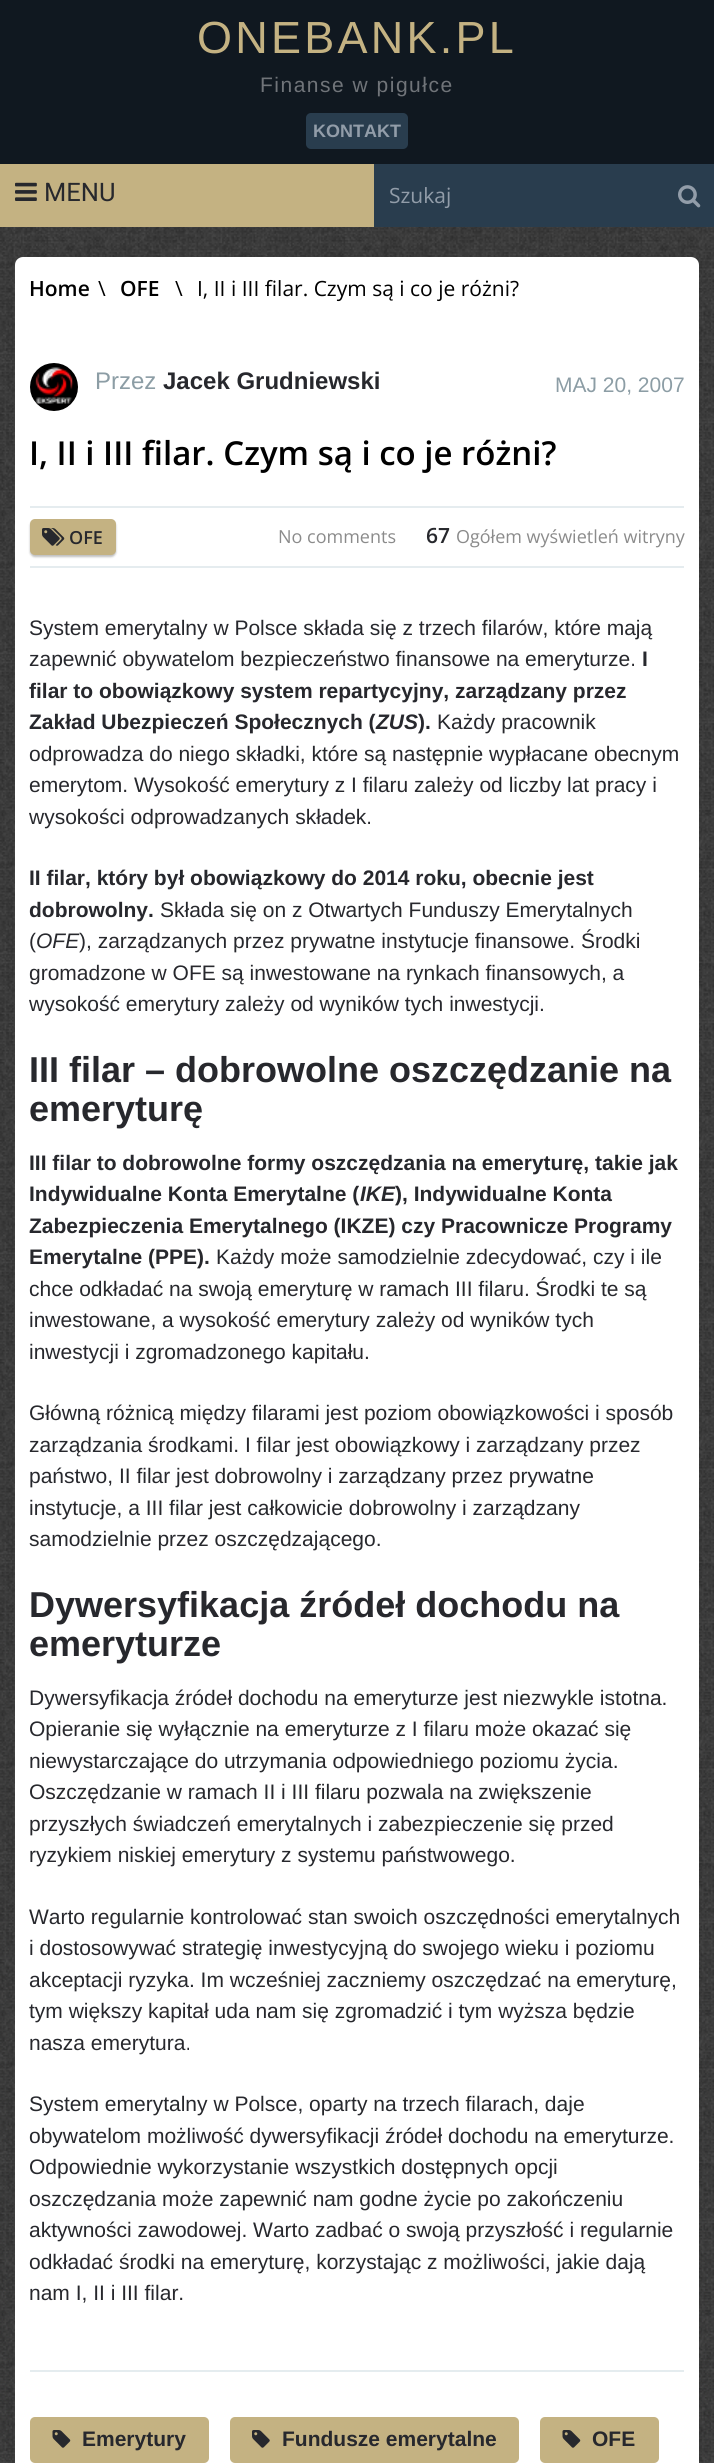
#include <cairo/cairo.h>
#include <math.h>
#include <stddef.h>

static cairo_t *cr;

static void use_color(int r, int g, int b) {
  cairo_set_source_rgb(cr, r / 255.0, g / 255.0, b / 255.0);
}

static void text(double x, double y, const char *s, const char *family, double size, int italic, int bold, int r, int g, int b) {
  cairo_select_font_face(cr, family, italic ? CAIRO_FONT_SLANT_ITALIC : CAIRO_FONT_SLANT_NORMAL,
    bold ? CAIRO_FONT_WEIGHT_BOLD : CAIRO_FONT_WEIGHT_NORMAL);
  cairo_set_font_size(cr, size);
  use_color(r, g, b);
  cairo_move_to(cr, x, y);
  cairo_show_text(cr, s);
}

static void spaced_text(double x, double y, const char *s, double letter, double word) {
  cairo_move_to(cr, x, y);
  while (*s) {
    char ch[5] = {0};
    int n = 0;
    do ch[n++] = *s++; while ((*s & 0xC0) == 0x80);
    cairo_show_text(cr, ch);
    cairo_rel_move_to(cr, letter + word * (*ch == ' '), 0);
  }
}

static void box(double x, double y, double w, double h, int r, int g, int b) {
  use_color(r, g, b);
  cairo_rectangle(cr, x, y, w, h);
  cairo_fill(cr);
}

static void round_rect(double x, double y, double w, double h, double r) {
  cairo_new_sub_path(cr);
  cairo_arc(cr, x + w - r, y + h - r, r, 0, M_PI / 2);
  cairo_arc(cr, x + r, y + h - r, r, M_PI / 2, M_PI);
  cairo_arc(cr, x + r, y + r, r, M_PI, 1.5 * M_PI);
  cairo_arc(cr, x + w - r, y + r, r, 1.5 * M_PI, 2 * M_PI);
  cairo_close_path(cr);
}

static void shadow(double x, double y, double w, double h, double r, double blur, double alpha) {
  cairo_push_group_with_content(cr, CAIRO_CONTENT_ALPHA);
  cairo_set_operator(cr, CAIRO_OPERATOR_SOURCE);
  for (int i = 15; i >= -15 && fmin(w, h) + blur * i / 3 > 0; i -= 2) {
    double e = blur * i / 6;
    cairo_set_source_rgba(cr, 0, 0, 0, alpha * erfc((i - 1) / 8.5) / 2);
    round_rect(x - e, y - e, w + 2 * e, h + 2 * e, fmax(0, fmin(r + e + blur * .6, fmin(w, h) / 2 + e)));
    cairo_fill(cr);
  }
  cairo_pattern_t *soft = cairo_pop_group(cr);
  cairo_mask(cr, soft);
  cairo_pattern_destroy(soft);
}

static void picture(const char *path, double x, double y, double w, double h) {
  cairo_surface_t *image = cairo_image_surface_create_from_png(path);
  cairo_save(cr);
  cairo_set_source_surface(cr, image, x, y);
  cairo_rectangle(cr, x, y, w, h);
  cairo_fill(cr);
  cairo_restore(cr);
  cairo_surface_destroy(image);
}

static void draw(void) {
  use_color(255, 255, 255);
  cairo_paint(cr);
  picture("img_01.png", 0, 227, 714, 2236);
  box(0, 0, 714, 164, 16, 24, 32);
  use_color(41, 61, 78);
  round_rect(306, 113, 102, 36, 5);
  cairo_fill(cr);
  box(0, 164, 374, 63, 196, 178, 130);
  picture("img_02.png", 15, 182, 22, 19);
  box(374, 164, 340, 63, 41, 61, 78);
  picture("img_03.png", 678, 185, 23, 23);
  use_color(255, 255, 255);
  round_rect(15, 257, 684, 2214, 8);
  cairo_fill(cr);
  box(30, 2370, 654, 2, 229, 236, 239);
  picture("img_04.png", 30, 363, 48, 48);
  box(30, 506, 654, 2, 229, 236, 239);
  box(30, 566, 654, 2, 229, 236, 239);
  use_color(0, 0, 0);
  shadow(30, 521, 86, 36, 5, 1, 0.25);
  use_color(196, 178, 130);
  round_rect(30, 519, 86, 36, 5);
  cairo_fill(cr);
  picture("img_05.png", 42, 528, 23, 18);
  round_rect(30, 2417, 179, 46, 5);
  cairo_fill(cr);
  picture("img_06.png", 52, 2430, 19, 18);
  round_rect(230, 2417, 289, 46, 5);
  cairo_fill(cr);
  picture("img_07.png", 252, 2430, 18, 18);
  round_rect(540, 2417, 119, 46, 5);
  cairo_fill(cr);
  picture("img_06.png", 562, 2430, 19, 18);
  cairo_select_font_face(cr, "Liberation Sans", CAIRO_FONT_SLANT_NORMAL, CAIRO_FONT_WEIGHT_NORMAL);
  cairo_set_font_size(cr, 45);
  spaced_text(197, 53, "ONEBANK.PL", 3.25, 0);
  cairo_set_font_size(cr, 21);
  use_color(112, 116, 121);
  spaced_text(260, 92, "Finanse w pigułce", 1.5, 0);
  text(313, 137, "KONTAKT", "Liberation Sans", 18, 0, 1, 146, 157, 169);
  text(44, 201, "MENU", "Roboto", 25.5, 0, 0, 39, 40, 45);
  text(389, 203, "Szukaj", "Open Sans", 21, 0, 0, 146, 157, 169);
  text(29, 296, "Home", "Open Sans SemiBold", 21, 0, 0, 0, 0, 0);
  text(98, 296, "\\", "Open Sans", 21, 0, 0, 0, 0, 0);
  text(120, 296, "OFE", "Open Sans SemiBold", 21, 0, 0, 0, 0, 0);
  text(175, 296, "\\", "Open Sans", 21, 0, 0, 0, 0, 0);
  text(197, 296, "I, II i III filar. Czym są i co je różni?", "Open Sans", 21, 0, 0, 0, 0, 0);
  text(95, 389, "Przez", "Liberation Sans", 24, 0, 0, 140, 157, 165);
  text(163, 389, "Jacek Grudniewski", "Liberation Sans", 24, 0, 1, 39, 40, 45);
  text(555, 392, "MAJ 20, 2007", "Liberation Sans", 21, 0, 0, 140, 157, 165);
  text(29, 465, "I, II i III filar. Czym są i co je różni?", "Open Sans SemiBold", 33, 0, 0, 0, 0, 0);
  text(69, 544, "OFE", "Open Sans SemiBold", 18, 0, 0, 39, 40, 45);
  text(278, 543, "No comments", "Open Sans", 18, 0, 0, 139, 139, 139);
  text(426, 543, "67", "Open Sans SemiBold", 21, 0, 0, 39, 40, 45);
  text(456, 543, "Ogółem wyświetleń witryny", "Open Sans", 18, 0, 0, 139, 139, 139);
  text(29, 635, "System emerytalny w Polsce składa się z trzech filarów, które mają", "Liberation Sans", 21, 0, 0, 39, 40, 45);
  text(29, 666, "zapewnić obywatelom bezpieczeństwo finansowe na emeryturze.", "Liberation Sans", 21, 0, 0, 39, 40, 45);
  text(642, 666, "I", "Liberation Sans", 21, 0, 1, 39, 40, 45);
  text(29, 698, "filar to obowiązkowy system repartycyjny, zarządzany przez", "Liberation Sans", 21, 0, 1, 39, 40, 45);
  text(29, 729, "Zakład Ubezpieczeń Społecznych (", "Liberation Sans", 21, 0, 1, 39, 40, 45);
  text(376, 729, "ZUS", "Liberation Sans", 21, 1, 1, 39, 40, 45);
  text(418, 729, ").", "Liberation Sans", 21, 0, 1, 39, 40, 45);
  text(437, 729, "Każdy pracownik", "Liberation Sans", 21, 0, 0, 39, 40, 45);
  text(29, 761, "odprowadza do niego składki, które są następnie wypłacane obecnym", "Liberation Sans", 21, 0, 0, 39, 40, 45);
  text(29, 792, "emerytom. Wysokość emerytury z I filaru zależy od liczby lat pracy i", "Liberation Sans", 21, 0, 0, 39, 40, 45);
  text(29, 824, "wysokości odprowadzanych składek.", "Liberation Sans", 21, 0, 0, 39, 40, 45);
  text(29, 885, "II filar, który był obowiązkowy do 2014 roku, obecnie jest", "Liberation Sans", 21, 0, 1, 39, 40, 45);
  text(29, 917, "dobrowolny.", "Liberation Sans", 21, 0, 1, 39, 40, 45);
  text(160, 917, "Składa się on z Otwartych Funduszy Emerytalnych", "Liberation Sans", 21, 0, 0, 39, 40, 45);
  text(29, 948, "(", "Liberation Sans", 21, 0, 0, 39, 40, 45);
  text(36, 948, "OFE", "Liberation Sans", 21, 1, 0, 39, 40, 45);
  text(79, 948, "), zarządzanych przez prywatne instytucje finansowe. Środki", "Liberation Sans", 21, 0, 0, 39, 40, 45);
  text(29, 980, "gromadzone w OFE są inwestowane na rynkach finansowych, a", "Liberation Sans", 21, 0, 0, 39, 40, 45);
  text(29, 1011, "wysokość emerytury zależy od wyników tych inwestycji.", "Liberation Sans", 21, 0, 0, 39, 40, 45);
  text(29, 1082, "III filar – dobrowolne oszczędzanie na", "Liberation Sans", 36, 0, 1, 39, 40, 45);
  text(29, 1121, "emeryturę", "Liberation Sans", 36, 0, 1, 39, 40, 45);
  text(29, 1170, "III filar to dobrowolne formy oszczędzania na emeryturę, takie jak", "Liberation Sans", 21, 0, 1, 39, 40, 45);
  text(29, 1201, "Indywidualne Konta Emerytalne (", "Liberation Sans", 21, 0, 1, 39, 40, 45);
  text(360, 1201, "IKE", "Liberation Sans", 21, 1, 1, 39, 40, 45);
  text(395, 1201, "), Indywidualne Konta", "Liberation Sans", 21, 0, 1, 39, 40, 45);
  text(29, 1233, "Zabezpieczenia Emerytalnego (IKZE) czy Pracownicze Programy", "Liberation Sans", 21, 0, 1, 39, 40, 45);
  text(29, 1264, "Emerytalne (PPE).", "Liberation Sans", 21, 0, 1, 39, 40, 45);
  text(216, 1264, "Każdy może samodzielnie zdecydować, czy i ile", "Liberation Sans", 21, 0, 0, 39, 40, 45);
  text(29, 1296, "chce odkładać na swoją emeryturę w ramach III filaru. Środki te są", "Liberation Sans", 21, 0, 0, 39, 40, 45);
  text(29, 1327, "inwestowane, a wysokość emerytury zależy od wyników tych", "Liberation Sans", 21, 0, 0, 39, 40, 45);
  text(29, 1359, "inwestycji i zgromadzonego kapitału.", "Liberation Sans", 21, 0, 0, 39, 40, 45);
  text(29, 1420, "Główną różnicą między filarami jest poziom obowiązkowości i sposób", "Liberation Sans", 21, 0, 0, 39, 40, 45);
  text(29, 1452, "zarządzania środkami. I filar jest obowiązkowy i zarządzany przez", "Liberation Sans", 21, 0, 0, 39, 40, 45);
  text(29, 1483, "państwo, II filar jest dobrowolny i zarządzany przez prywatne", "Liberation Sans", 21, 0, 0, 39, 40, 45);
  text(29, 1515, "instytucje, a III filar jest całkowicie dobrowolny i zarządzany", "Liberation Sans", 21, 0, 0, 39, 40, 45);
  text(29, 1546, "samodzielnie przez oszczędzającego.", "Liberation Sans", 21, 0, 0, 39, 40, 45);
  text(29, 1617, "Dywersyfikacja źródeł dochodu na", "Liberation Sans", 36, 0, 1, 39, 40, 45);
  text(29, 1656, "emeryturze", "Liberation Sans", 36, 0, 1, 39, 40, 45);
  text(29, 1705, "Dywersyfikacja źródeł dochodu na emeryturze jest niezwykle istotna.", "Liberation Sans", 21, 0, 0, 39, 40, 45);
  text(29, 1736, "Opieranie się wyłącznie na emeryturze z I filaru może okazać się", "Liberation Sans", 21, 0, 0, 39, 40, 45);
  text(29, 1768, "niewystarczające do utrzymania odpowiedniego poziomu życia.", "Liberation Sans", 21, 0, 0, 39, 40, 45);
  text(29, 1799, "Oszczędzanie w ramach II i III filaru pozwala na zwiększenie", "Liberation Sans", 21, 0, 0, 39, 40, 45);
  text(29, 1831, "przyszłych świadczeń emerytalnych i zabezpieczenie się przed", "Liberation Sans", 21, 0, 0, 39, 40, 45);
  text(29, 1862, "ryzykiem niskiej emerytury z systemu państwowego.", "Liberation Sans", 21, 0, 0, 39, 40, 45);
  text(29, 1924, "Warto regularnie kontrolować stan swoich oszczędności emerytalnych", "Liberation Sans", 21, 0, 0, 39, 40, 45);
  text(29, 1955, "i dostosowywać strategię inwestycyjną do swojego wieku i poziomu", "Liberation Sans", 21, 0, 0, 39, 40, 45);
  text(29, 1987, "akceptacji ryzyka. Im wcześniej zaczniemy oszczędzać na emeryturę,", "Liberation Sans", 21, 0, 0, 39, 40, 45);
  text(29, 2018, "tym większy kapitał uda nam się zgromadzić i tym wyższa będzie", "Liberation Sans", 21, 0, 0, 39, 40, 45);
  text(29, 2050, "nasza emerytura.", "Liberation Sans", 21, 0, 0, 39, 40, 45);
  text(29, 2111, "System emerytalny w Polsce, oparty na trzech filarach, daje", "Liberation Sans", 21, 0, 0, 39, 40, 45);
  text(29, 2143, "obywatelom możliwość dywersyfikacji źródeł dochodu na emeryturze.", "Liberation Sans", 21, 0, 0, 39, 40, 45);
  text(29, 2174, "Odpowiednie wykorzystanie wszystkich dostępnych opcji", "Liberation Sans", 21, 0, 0, 39, 40, 45);
  text(29, 2206, "oszczędzania może zapewnić nam godne życie po zakończeniu", "Liberation Sans", 21, 0, 0, 39, 40, 45);
  text(29, 2237, "aktywności zawodowej. Warto zadbać o swoją przyszłość i regularnie", "Liberation Sans", 21, 0, 0, 39, 40, 45);
  text(29, 2269, "odkładać środki na emeryturę, korzystając z możliwości, jakie dają", "Liberation Sans", 21, 0, 0, 39, 40, 45);
  text(29, 2300, "nam I, II i III filar.", "Liberation Sans", 21, 0, 0, 39, 40, 45);
  text(82, 2446, "Emerytury", "Liberation Sans", 21, 0, 1, 39, 40, 45);
  text(282, 2446, "Fundusze emerytalne", "Liberation Sans", 21, 0, 1, 39, 40, 45);
  text(592, 2446, "OFE", "Liberation Sans", 21, 0, 1, 39, 40, 45);
}

int main(void) {
  cairo_surface_t *surface = cairo_image_surface_create(CAIRO_FORMAT_RGB24, 714, 2463);
  cr = cairo_create(surface);
  cairo_font_options_t *options = cairo_font_options_create();
  cairo_font_options_set_hint_metrics(options, CAIRO_HINT_METRICS_OFF);
  cairo_font_options_set_hint_style(options, CAIRO_HINT_STYLE_NONE);
  cairo_set_font_options(cr, options);
  cairo_set_miter_limit(cr, 4);
  draw();
  cairo_surface_write_to_png(surface, "out.png");
  cairo_font_options_destroy(options);
  cairo_destroy(cr);
  cairo_surface_destroy(surface);
  return 0;
}
